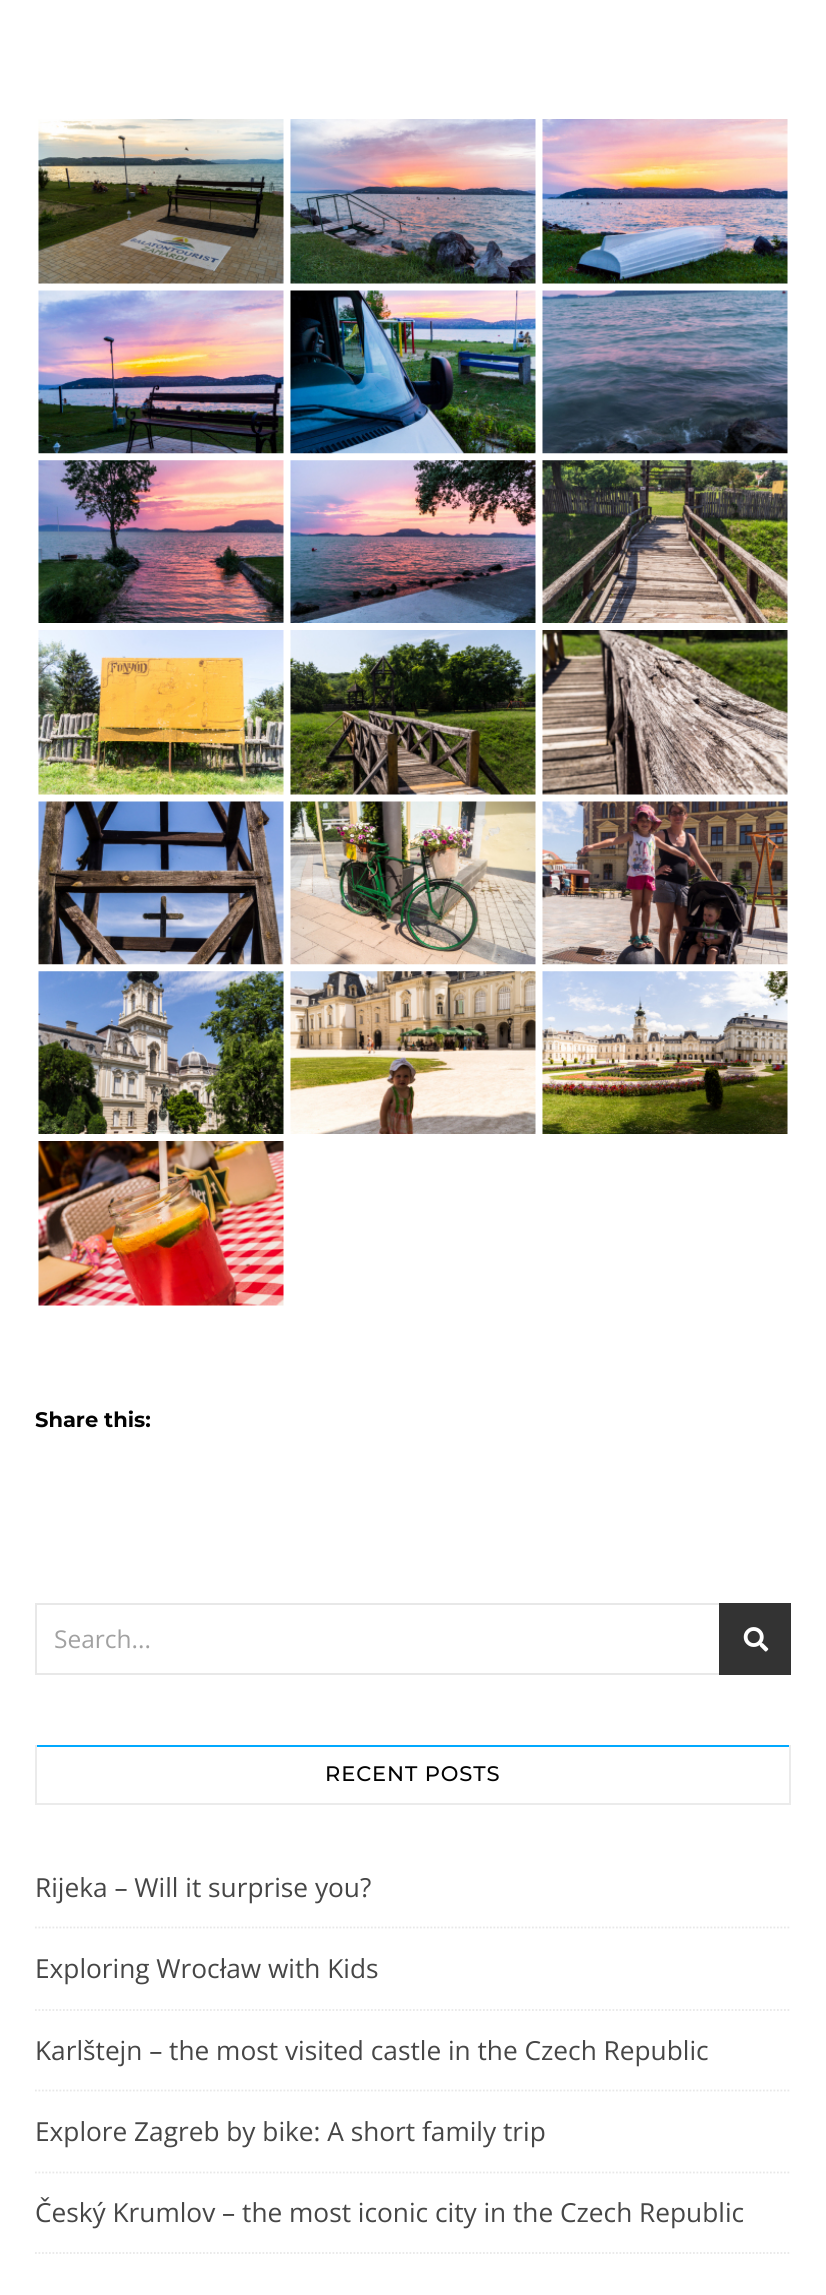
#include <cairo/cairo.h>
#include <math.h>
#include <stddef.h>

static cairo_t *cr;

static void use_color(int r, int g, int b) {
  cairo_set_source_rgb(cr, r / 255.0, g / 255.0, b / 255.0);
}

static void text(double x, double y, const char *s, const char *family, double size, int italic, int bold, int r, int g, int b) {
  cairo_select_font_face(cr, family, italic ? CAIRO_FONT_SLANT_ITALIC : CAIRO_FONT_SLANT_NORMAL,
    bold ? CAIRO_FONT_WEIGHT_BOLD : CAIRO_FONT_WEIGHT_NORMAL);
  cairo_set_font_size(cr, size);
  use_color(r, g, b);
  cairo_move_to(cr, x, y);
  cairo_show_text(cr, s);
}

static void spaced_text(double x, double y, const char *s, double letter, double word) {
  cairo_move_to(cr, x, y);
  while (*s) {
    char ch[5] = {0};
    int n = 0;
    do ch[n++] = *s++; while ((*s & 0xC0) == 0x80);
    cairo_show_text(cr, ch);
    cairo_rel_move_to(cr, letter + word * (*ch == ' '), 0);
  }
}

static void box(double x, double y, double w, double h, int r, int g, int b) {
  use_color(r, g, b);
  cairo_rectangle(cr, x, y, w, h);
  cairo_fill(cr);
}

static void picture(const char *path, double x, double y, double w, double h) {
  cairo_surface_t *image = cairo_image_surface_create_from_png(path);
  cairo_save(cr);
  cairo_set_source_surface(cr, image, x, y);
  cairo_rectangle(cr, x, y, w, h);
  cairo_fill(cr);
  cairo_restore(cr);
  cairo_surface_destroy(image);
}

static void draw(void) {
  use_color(255, 255, 255);
  cairo_paint(cr);
  picture("img_01.png", 38, 119, 246, 165);
  picture("img_02.png", 290, 119, 246, 165);
  picture("img_03.png", 542, 119, 246, 165);
  picture("img_04.png", 38, 290, 246, 164);
  picture("img_05.png", 290, 290, 246, 164);
  picture("img_06.png", 542, 290, 246, 164);
  picture("img_07.png", 38, 460, 246, 163);
  picture("img_08.png", 290, 460, 246, 163);
  picture("img_09.png", 542, 460, 246, 163);
  picture("img_10.png", 38, 630, 246, 165);
  picture("img_11.png", 290, 630, 246, 165);
  picture("img_12.png", 542, 630, 246, 165);
  picture("img_13.png", 38, 801, 246, 164);
  picture("img_14.png", 290, 801, 246, 164);
  picture("img_15.png", 542, 801, 246, 164);
  picture("img_16.png", 38, 971, 246, 163);
  picture("img_17.png", 290, 971, 246, 163);
  picture("img_18.png", 542, 971, 246, 163);
  picture("img_19.png", 38, 1141, 246, 165);
  cairo_rectangle(cr, 36, 1604, 754, 70);
  use_color(232, 232, 232);
  cairo_stroke(cr);
  box(719, 1603, 72, 72, 51, 51, 51);
  picture("img_20.png", 743, 1627, 26, 25);
  box(35, 1745, 756, 2, 0, 169, 255);
  box(789, 1745, 2, 59, 235, 235, 235);
  box(35, 1803, 756, 2, 235, 235, 235);
  box(35, 1745, 2, 59, 235, 235, 235);
  cairo_new_path(cr);
  cairo_move_to(cr, 35, 1927.5);
  cairo_line_to(cr, 791, 1927.5);
  use_color(232, 232, 232);
  cairo_set_line_width(cr, 1.8);
  cairo_set_dash(cr, (double[]){1.75, 1.75}, 2, 0);
  cairo_stroke(cr);
  cairo_new_path(cr);
  cairo_move_to(cr, 35, 2010);
  cairo_line_to(cr, 791, 2010);
  cairo_stroke(cr);
  cairo_new_path(cr);
  cairo_move_to(cr, 35, 2090.5);
  cairo_line_to(cr, 791, 2090.5);
  cairo_stroke(cr);
  cairo_new_path(cr);
  cairo_move_to(cr, 35, 2172.5);
  cairo_line_to(cr, 791, 2172.5);
  cairo_stroke(cr);
  cairo_new_path(cr);
  cairo_move_to(cr, 35, 2253);
  cairo_line_to(cr, 791, 2253);
  cairo_stroke(cr);
  text(35, 1427, "Share this:", "Montserrat", 21, 0, 1, 3, 3, 3);
  text(54, 1648, "Search...", "Open Sans", 24.5, 0, 0, 161, 161, 161);
  cairo_select_font_face(cr, "Montserrat Medium", CAIRO_FONT_SLANT_NORMAL, CAIRO_FONT_WEIGHT_NORMAL);
  cairo_set_font_size(cr, 21);
  use_color(3, 3, 3);
  spaced_text(325, 1781, "RECENT POSTS", 0.9, 0);
  text(35, 1897, "Rijeka – Will it surprise you?", "Open Sans", 26.25, 0, 0, 70, 70, 70);
  text(35, 1978, "Exploring Wrocław with Kids", "Open Sans", 26.25, 0, 0, 70, 70, 70);
  text(35, 2060, "Karlštejn – the most visited castle in the Czech Republic", "Open Sans", 26.25, 0, 0, 70, 70, 70);
  text(35, 2141, "Explore Zagreb by bike: A short family trip", "Open Sans", 26.25, 0, 0, 70, 70, 70);
  text(35, 2222, "Český Krumlov – the most iconic city in the Czech Republic", "Open Sans", 26.25, 0, 0, 70, 70, 70);
}

int main(void) {
  cairo_surface_t *surface = cairo_image_surface_create(CAIRO_FORMAT_RGB24, 826, 2295);
  cr = cairo_create(surface);
  cairo_font_options_t *options = cairo_font_options_create();
  cairo_font_options_set_hint_metrics(options, CAIRO_HINT_METRICS_OFF);
  cairo_font_options_set_hint_style(options, CAIRO_HINT_STYLE_NONE);
  cairo_set_font_options(cr, options);
  cairo_set_miter_limit(cr, 4);
  draw();
  cairo_surface_write_to_png(surface, "out.png");
  cairo_font_options_destroy(options);
  cairo_destroy(cr);
  cairo_surface_destroy(surface);
  return 0;
}
